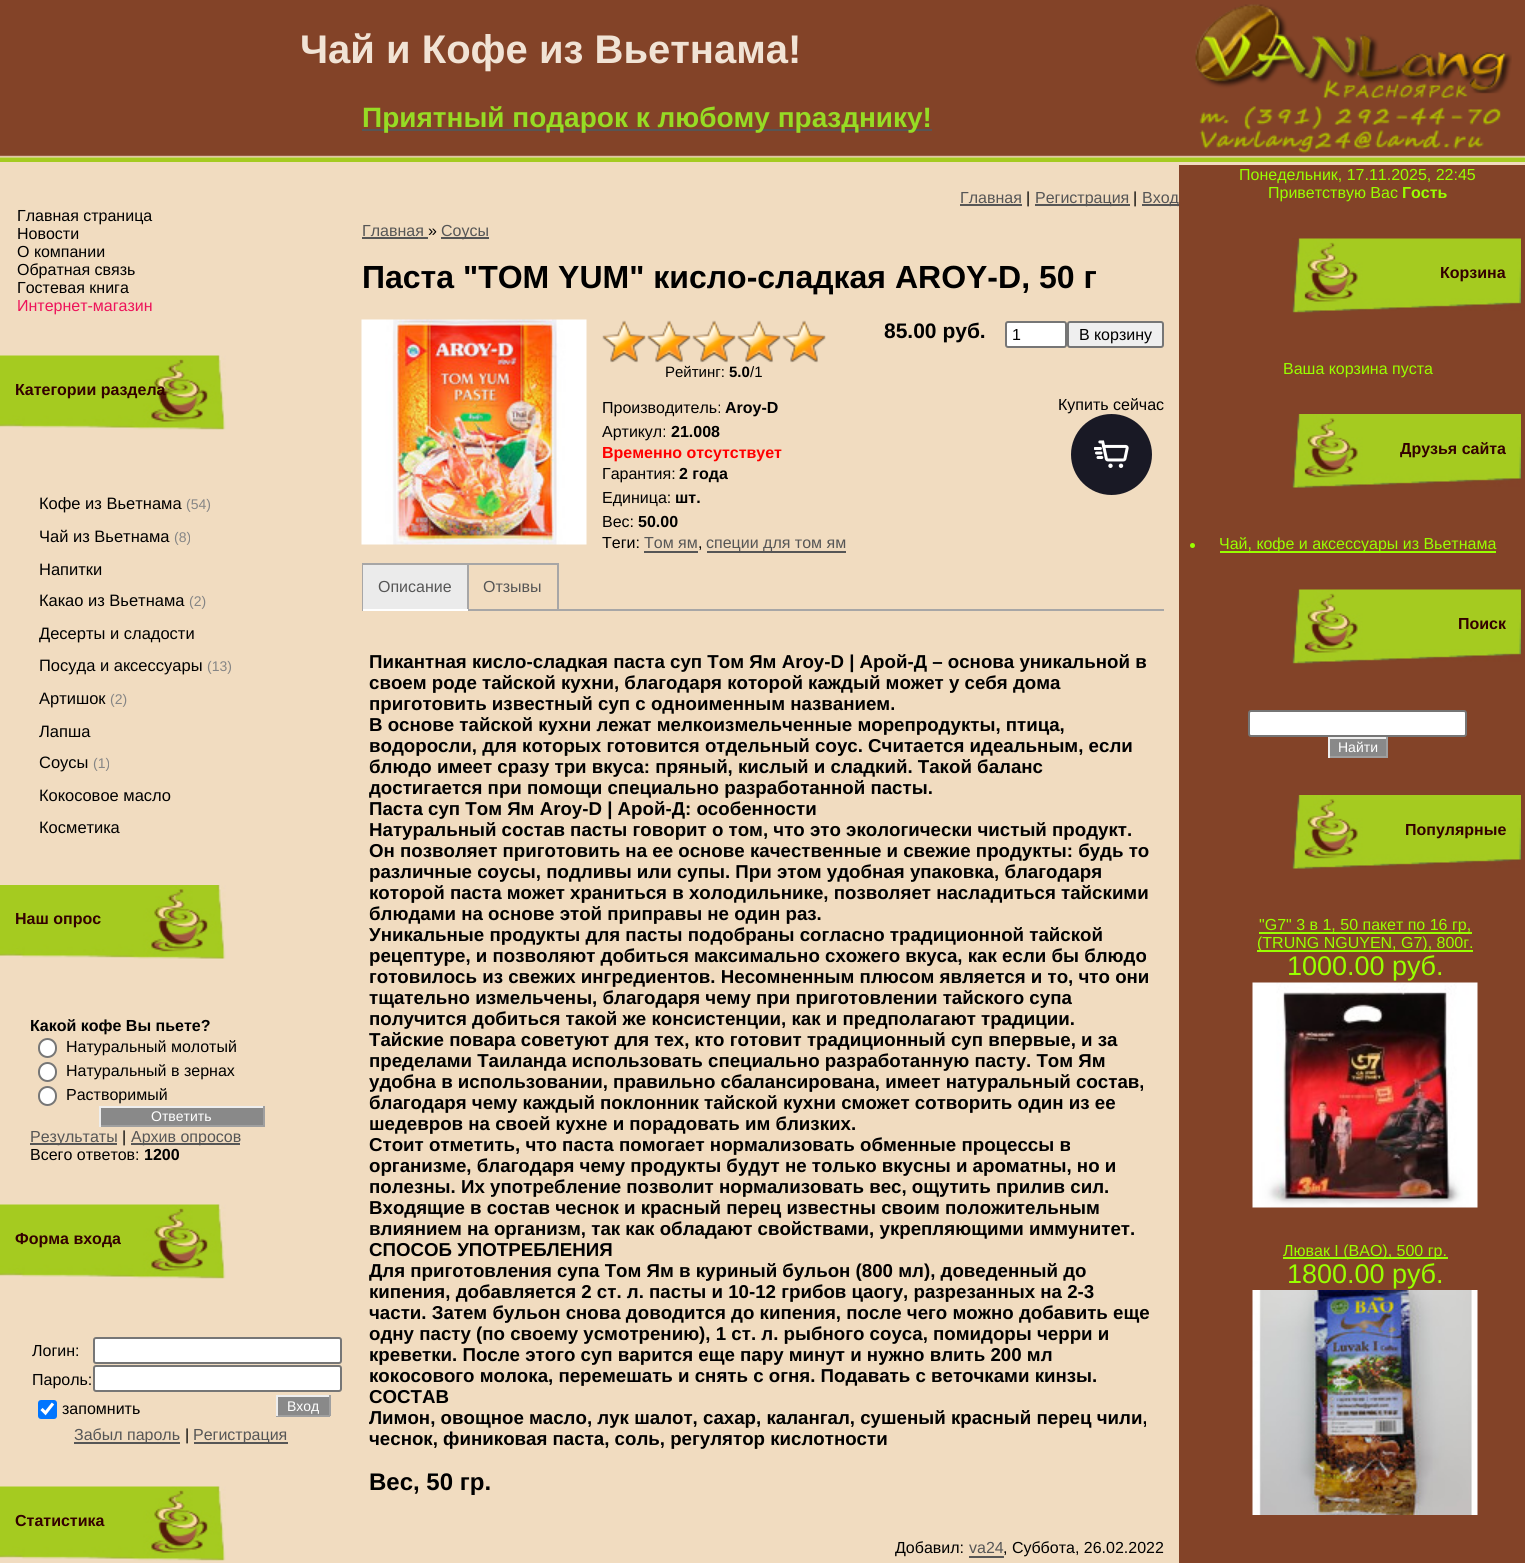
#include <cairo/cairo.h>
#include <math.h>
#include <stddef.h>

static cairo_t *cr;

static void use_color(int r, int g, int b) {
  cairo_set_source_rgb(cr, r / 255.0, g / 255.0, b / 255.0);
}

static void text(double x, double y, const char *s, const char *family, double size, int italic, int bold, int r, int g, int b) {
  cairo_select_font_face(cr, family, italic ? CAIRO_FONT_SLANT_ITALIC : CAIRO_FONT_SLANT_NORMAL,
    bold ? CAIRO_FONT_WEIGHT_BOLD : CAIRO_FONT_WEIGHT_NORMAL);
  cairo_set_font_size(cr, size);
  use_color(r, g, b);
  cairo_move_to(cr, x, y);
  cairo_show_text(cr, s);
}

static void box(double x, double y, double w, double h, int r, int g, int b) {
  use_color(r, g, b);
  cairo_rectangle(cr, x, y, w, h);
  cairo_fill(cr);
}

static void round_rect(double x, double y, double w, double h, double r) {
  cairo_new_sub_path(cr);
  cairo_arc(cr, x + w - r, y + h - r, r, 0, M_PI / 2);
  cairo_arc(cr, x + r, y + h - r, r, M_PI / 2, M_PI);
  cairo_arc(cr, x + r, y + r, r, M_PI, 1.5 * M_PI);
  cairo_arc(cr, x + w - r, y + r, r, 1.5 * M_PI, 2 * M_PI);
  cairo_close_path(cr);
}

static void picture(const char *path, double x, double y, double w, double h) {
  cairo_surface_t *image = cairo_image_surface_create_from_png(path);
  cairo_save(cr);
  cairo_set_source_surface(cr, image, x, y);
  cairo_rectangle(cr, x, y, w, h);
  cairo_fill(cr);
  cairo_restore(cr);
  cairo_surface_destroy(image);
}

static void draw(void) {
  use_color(241, 220, 192);
  cairo_paint(cr);
  picture("img_01.png", 0, 0, 1525, 162);
  box(362, 129, 570, 2, 86, 86, 86);
  box(960, 204, 62, 2, 86, 86, 86);
  box(1035, 204, 95, 2, 86, 86, 86);
  box(1142, 204, 37, 2, 86, 86, 86);
  picture("img_02.png", 0, 355, 226, 75);
  picture("img_03.png", 0, 885, 226, 74);
  use_color(255, 255, 255);
  round_rect(39, 1039, 17, 18, 8.5);
  cairo_fill_preserve(cr);
  use_color(118, 118, 118);
  cairo_stroke(cr);
  use_color(255, 255, 255);
  round_rect(39, 1063, 17, 18, 8.5);
  cairo_fill_preserve(cr);
  use_color(118, 118, 118);
  cairo_stroke(cr);
  use_color(255, 255, 255);
  round_rect(39, 1087, 17, 18, 8.5);
  cairo_fill_preserve(cr);
  use_color(118, 118, 118);
  cairo_stroke(cr);
  box(101, 1108, 162, 17, 137, 137, 137);
  box(99, 1106, 165, 2, 238, 238, 238);
  box(263, 1106, 2, 21, 159, 159, 159);
  box(99, 1125, 165, 2, 159, 159, 159);
  box(99, 1106, 2, 21, 238, 238, 238);
  box(30, 1143, 87, 2, 86, 86, 86);
  box(131, 1143, 109, 2, 86, 86, 86);
  picture("img_02.png", 0, 1204, 226, 75);
  use_color(255, 255, 255);
  round_rect(94, 1338, 247, 25, 2);
  cairo_fill_preserve(cr);
  use_color(118, 118, 118);
  cairo_stroke(cr);
  use_color(255, 255, 255);
  round_rect(94, 1366, 247, 25, 2);
  cairo_fill_preserve(cr);
  use_color(118, 118, 118);
  cairo_stroke(cr);
  use_color(0, 117, 255);
  round_rect(38, 1400, 19, 19, 3);
  cairo_fill(cr);
  cairo_new_path(cr);
  cairo_move_to(cr, 41.5, 1409);
  cairo_line_to(cr, 45.5, 1413);
  cairo_line_to(cr, 53, 1403.5);
  use_color(255, 255, 255);
  cairo_set_line_width(cr, 3.1);
  cairo_stroke(cr);
  box(278, 1397, 51, 18, 137, 137, 137);
  box(276, 1395, 54, 2, 238, 238, 238);
  box(329, 1395, 2, 21, 159, 159, 159);
  box(276, 1415, 54, 2, 159, 159, 159);
  box(276, 1395, 2, 21, 238, 238, 238);
  box(74, 1442, 106, 2, 86, 86, 86);
  box(194, 1442, 94, 2, 86, 86, 86);
  picture("img_02.png", 0, 1486, 226, 75);
  box(362, 237, 66, 2, 86, 86, 86);
  box(441, 237, 48, 2, 86, 86, 86);
  picture("img_04.png", 361, 319, 226, 226);
  use_color(255, 255, 255);
  round_rect(1006, 322, 60, 25, 2);
  cairo_fill_preserve(cr);
  use_color(118, 118, 118);
  cairo_set_line_width(cr, 2);
  cairo_stroke(cr);
  use_color(239, 239, 239);
  round_rect(1068, 322, 95, 25, 2);
  cairo_fill_preserve(cr);
  use_color(118, 118, 118);
  cairo_stroke(cr);
  picture("img_05.png", 602, 321, 224, 41);
  picture("img_06.png", 602, 320, 224, 43);
  box(644, 551, 54, 2, 86, 86, 86);
  box(707, 551, 139, 2, 86, 86, 86);
  use_color(25, 25, 37);
  cairo_arc(cr, 1111.5, 454.5, 40.5, 0, 2 * M_PI);
  cairo_fill(cr);
  picture("img_07.png", 1094, 440, 35, 28);
  box(469, 609, 695, 2, 167, 166, 166);
  box(362, 563, 1, 48, 167, 166, 166);
  box(363, 565, 104, 44, 235, 235, 235);
  box(363, 563, 105, 2, 167, 166, 166);
  box(467, 563, 2, 48, 167, 166, 166);
  box(363, 609, 105, 2, 255, 255, 255);
  box(468, 563, 90, 2, 167, 166, 166);
  box(557, 563, 2, 46, 167, 166, 166);
  box(969, 1556, 35, 2, 86, 86, 86);
  picture("img_08.png", 1195, 4, 317, 150);
  box(1179, 165, 346, 1398, 131, 67, 40);
  picture("img_09.png", 1292, 238, 229, 75);
  picture("img_10.png", 1292, 414, 229, 74);
  use_color(153, 255, 0);
  cairo_arc(cr, 1192.5, 545.5, 2.5, 0, 2 * M_PI);
  cairo_fill(cr);
  box(1220, 551, 276, 2, 153, 255, 0);
  picture("img_09.png", 1292, 589, 229, 75);
  use_color(255, 255, 255);
  round_rect(1249, 711, 217, 25, 2);
  cairo_fill_preserve(cr);
  use_color(118, 118, 118);
  cairo_stroke(cr);
  box(1330, 739, 56, 17, 137, 137, 137);
  box(1328, 737, 60, 2, 238, 238, 238);
  box(1386, 737, 2, 21, 159, 159, 159);
  box(1328, 756, 60, 2, 159, 159, 159);
  box(1328, 737, 2, 21, 238, 238, 238);
  picture("img_10.png", 1292, 795, 229, 74);
  box(1259, 932, 213, 2, 153, 255, 0);
  box(1257, 950, 216, 2, 153, 255, 0);
  picture("img_11.png", 1252, 982, 226, 226);
  box(1283, 1257, 165, 2, 153, 255, 0);
  picture("img_12.png", 1252, 1290, 226, 225);
  text(300, 63, "Чай и Кофе из Вьетнама!", "Liberation Sans", 40, 0, 1, 241, 227, 213);
  text(362, 127, "Приятный подарок к любому празднику!", "Liberation Sans", 28, 0, 1, 150, 220, 36);
  text(960, 203, "Главная", "Liberation Sans", 16, 0, 0, 86, 86, 86);
  text(1026, 203, "|", "Liberation Sans", 16, 0, 0, 0, 0, 0);
  text(1035, 203, "Регистрация", "Liberation Sans", 16, 0, 0, 86, 86, 86);
  text(1133, 203, "|", "Liberation Sans", 16, 0, 0, 0, 0, 0);
  text(1142, 203, "Вход", "Liberation Sans", 16, 0, 0, 86, 86, 86);
  text(17, 221, "Главная страница", "Liberation Sans", 16, 0, 0, 0, 0, 0);
  text(17, 239, "Новости", "Liberation Sans", 16, 0, 0, 0, 0, 0);
  text(17, 257, "О компании", "Liberation Sans", 16, 0, 0, 0, 0, 0);
  text(17, 275, "Обратная связь", "Liberation Sans", 16, 0, 0, 0, 0, 0);
  text(17, 293, "Гостевая книга", "Liberation Sans", 16, 0, 0, 0, 0, 0);
  text(17, 311, "Интернет-магазин", "Liberation Sans", 16, 0, 0, 237, 19, 90);
  text(15, 395, "Категории раздела", "Liberation Sans", 16, 0, 1, 51, 0, 0);
  text(39, 509, "Кофе из Вьетнама", "Liberation Sans", 16.5, 0, 0, 0, 0, 0);
  text(186, 509, "(54)", "Liberation Sans", 14, 0, 0, 133, 133, 133);
  text(39, 542, "Чай из Вьетнама", "Liberation Sans", 16.5, 0, 0, 0, 0, 0);
  text(174, 542, "(8)", "Liberation Sans", 14, 0, 0, 133, 133, 133);
  text(39, 575, "Напитки", "Liberation Sans", 16.5, 0, 0, 0, 0, 0);
  text(39, 606, "Какао из Вьетнама", "Liberation Sans", 16.5, 0, 0, 0, 0, 0);
  text(189, 606, "(2)", "Liberation Sans", 14, 0, 0, 133, 133, 133);
  text(39, 639, "Десерты и сладости", "Liberation Sans", 16.5, 0, 0, 0, 0, 0);
  text(39, 671, "Посуда и аксессуары", "Liberation Sans", 16.5, 0, 0, 0, 0, 0);
  text(207, 671, "(13)", "Liberation Sans", 14, 0, 0, 133, 133, 133);
  text(39, 704, "Артишок", "Liberation Sans", 16.5, 0, 0, 0, 0, 0);
  text(110, 704, "(2)", "Liberation Sans", 14, 0, 0, 133, 133, 133);
  text(39, 737, "Лапша", "Liberation Sans", 16.5, 0, 0, 0, 0, 0);
  text(39, 768, "Соусы", "Liberation Sans", 16.5, 0, 0, 0, 0, 0);
  text(93, 768, "(1)", "Liberation Sans", 14, 0, 0, 133, 133, 133);
  text(39, 801, "Кокосовое масло", "Liberation Sans", 16.5, 0, 0, 0, 0, 0);
  text(39, 833, "Косметика", "Liberation Sans", 16.5, 0, 0, 0, 0, 0);
  text(15, 924, "Наш опрос", "Liberation Sans", 16, 0, 1, 51, 0, 0);
  text(30, 1031, "Какой кофе Вы пьете?", "Liberation Sans", 16, 0, 1, 0, 0, 0);
  text(66, 1052, "Натуральный молотый", "Liberation Sans", 16, 0, 0, 0, 0, 0);
  text(66, 1076, "Натуральный в зернах", "Liberation Sans", 16, 0, 0, 0, 0, 0);
  text(66, 1100, "Растворимый", "Liberation Sans", 16, 0, 0, 0, 0, 0);
  text(151, 1121, "Ответить", "Liberation Sans", 14, 0, 0, 255, 255, 255);
  text(30, 1142, "Результаты", "Liberation Sans", 16, 0, 0, 86, 86, 86);
  text(122, 1142, "|", "Liberation Sans", 16, 0, 0, 0, 0, 0);
  text(131, 1142, "Архив опросов", "Liberation Sans", 16, 0, 0, 86, 86, 86);
  text(30, 1160, "Всего ответов:", "Liberation Sans", 16, 0, 0, 0, 0, 0);
  text(144, 1160, "1200", "Liberation Sans", 16, 0, 1, 0, 0, 0);
  text(15, 1244, "Форма входа", "Liberation Sans", 16, 0, 1, 51, 0, 0);
  text(32, 1356, "Логин:", "Liberation Sans", 16, 0, 0, 0, 0, 0);
  text(32, 1385, "Пароль:", "Liberation Sans", 16, 0, 0, 0, 0, 0);
  text(62, 1414, "запомнить", "Liberation Sans", 16, 0, 0, 0, 0, 0);
  text(287, 1411, "Вход", "Liberation Sans", 14, 0, 0, 255, 255, 255);
  text(74, 1440, "Забыл пароль", "Liberation Sans", 16, 0, 0, 86, 86, 86);
  text(185, 1440, "|", "Liberation Sans", 16, 0, 0, 0, 0, 0);
  text(193, 1440, "Регистрация", "Liberation Sans", 16, 0, 0, 86, 86, 86);
  text(15, 1526, "Статистика", "Liberation Sans", 16, 0, 1, 51, 0, 0);
  text(362, 236, "Главная", "Liberation Sans", 16, 0, 0, 86, 86, 86);
  text(428, 236, "»", "Liberation Sans", 16, 0, 0, 0, 0, 0);
  text(441, 236, "Соусы", "Liberation Sans", 16, 0, 0, 86, 86, 86);
  text(362, 288, "Паста \"TOM YUM\" кисло-сладкая AROY-D, 50 г", "Liberation Sans", 32, 0, 1, 0, 0, 0);
  text(884, 338, "85.00 руб.", "Liberation Sans", 21, 0, 1, 0, 0, 0);
  text(1012, 340, "1", "Liberation Sans", 16, 0, 0, 0, 0, 0);
  text(1079, 340, "В корзину", "Liberation Sans", 16, 0, 0, 0, 0, 0);
  text(665, 377, "Рейтинг:", "Liberation Sans", 15, 0, 0, 0, 0, 0);
  text(729, 377, "5.0", "Liberation Sans", 15, 0, 1, 0, 0, 0);
  text(750, 377, "/1", "Liberation Sans", 15, 0, 0, 0, 0, 0);
  text(602, 413, "Производитель:", "Liberation Sans", 16, 0, 0, 0, 0, 0);
  text(725, 413, "Aroy-D", "Liberation Sans", 16, 0, 1, 0, 0, 0);
  text(602, 437, "Артикул:", "Liberation Sans", 16, 0, 0, 0, 0, 0);
  text(671, 437, "21.008", "Liberation Sans", 16, 0, 1, 0, 0, 0);
  text(602, 458, "Временно отсутствует", "Liberation Sans", 16, 0, 1, 255, 0, 0);
  text(602, 479, "Гарантия:", "Liberation Sans", 16, 0, 0, 0, 0, 0);
  text(679, 479, "2 года", "Liberation Sans", 16, 0, 1, 0, 0, 0);
  text(602, 503, "Единица:", "Liberation Sans", 16, 0, 0, 0, 0, 0);
  text(675, 503, "шт.", "Liberation Sans", 16, 0, 1, 0, 0, 0);
  text(602, 527, "Вес:", "Liberation Sans", 16, 0, 0, 0, 0, 0);
  text(638, 527, "50.00", "Liberation Sans", 16, 0, 1, 0, 0, 0);
  text(602, 548, "Теги:", "Liberation Sans", 16, 0, 0, 0, 0, 0);
  text(644, 548, "Том ям", "Liberation Sans", 16, 0, 0, 86, 86, 86);
  text(698, 548, ",", "Liberation Sans", 16, 0, 0, 0, 0, 0);
  text(706, 548, "специи для том ям", "Liberation Sans", 16, 0, 0, 86, 86, 86);
  text(1058, 410, "Купить сейчас", "Liberation Sans", 16, 0, 0, 0, 0, 0);
  text(378, 592, "Описание", "Liberation Sans", 16, 0, 0, 86, 86, 86);
  text(483, 592, "Отзывы", "Liberation Sans", 16, 0, 0, 86, 86, 86);
  text(369, 668, "Пикантная кисло-сладкая паста суп Том Ям Aroy-D | Арой-Д – основа уникальной в", "Liberation Sans", 18.7, 0, 1, 0, 0, 0);
  text(369, 689, "своем роде тайской кухни, благодаря которой каждый может у себя дома", "Liberation Sans", 18.7, 0, 1, 0, 0, 0);
  text(369, 710, "приготовить известный суп с одноименным названием.", "Liberation Sans", 18.7, 0, 1, 0, 0, 0);
  text(369, 731, "В основе тайской кухни лежат мелкоизмельченные морепродукты, птица,", "Liberation Sans", 18.7, 0, 1, 0, 0, 0);
  text(369, 752, "водоросли, для которых готовится отдельный соус. Считается идеальным, если", "Liberation Sans", 18.7, 0, 1, 0, 0, 0);
  text(369, 773, "блюдо имеет сразу три вкуса: пряный, кислый и сладкий. Такой баланс", "Liberation Sans", 18.7, 0, 1, 0, 0, 0);
  text(369, 794, "достигается при помощи специально разработанной пасты.", "Liberation Sans", 18.7, 0, 1, 0, 0, 0);
  text(369, 815, "Паста суп Том Ям Aroy-D | Арой-Д: особенности", "Liberation Sans", 18.7, 0, 1, 0, 0, 0);
  text(369, 836, "Натуральный состав пасты говорит о том, что это экологически чистый продукт.", "Liberation Sans", 18.7, 0, 1, 0, 0, 0);
  text(369, 857, "Он позволяет приготовить на ее основе качественные и свежие продукты: будь то", "Liberation Sans", 18.7, 0, 1, 0, 0, 0);
  text(369, 878, "различные соусы, подливы или супы. При этом удобная упаковка, благодаря", "Liberation Sans", 18.7, 0, 1, 0, 0, 0);
  text(369, 899, "которой паста может храниться в холодильнике, позволяет насладиться тайскими", "Liberation Sans", 18.7, 0, 1, 0, 0, 0);
  text(369, 920, "блюдами на основе этой приправы не один раз.", "Liberation Sans", 18.7, 0, 1, 0, 0, 0);
  text(369, 941, "Уникальные продукты для пасты подобраны согласно традиционной тайской", "Liberation Sans", 18.7, 0, 1, 0, 0, 0);
  text(369, 962, "рецептуре, и позволяют добиться максимально схожего вкуса, как если бы блюдо", "Liberation Sans", 18.7, 0, 1, 0, 0, 0);
  text(369, 983, "готовилось из свежих ингредиентов. Несомненным плюсом является и то, что они", "Liberation Sans", 18.7, 0, 1, 0, 0, 0);
  text(369, 1004, "тщательно измельчены, благодаря чему при приготовлении тайского супа", "Liberation Sans", 18.7, 0, 1, 0, 0, 0);
  text(369, 1025, "получится добиться такой же консистенции, как и предполагают традиции.", "Liberation Sans", 18.7, 0, 1, 0, 0, 0);
  text(369, 1046, "Тайские повара советуют для тех, кто готовит традиционный суп впервые, и за", "Liberation Sans", 18.7, 0, 1, 0, 0, 0);
  text(369, 1067, "пределами Таиланда использовать специально разработанную пасту. Том Ям", "Liberation Sans", 18.7, 0, 1, 0, 0, 0);
  text(369, 1088, "удобна в использовании, правильно сбалансирована, имеет натуральный состав,", "Liberation Sans", 18.7, 0, 1, 0, 0, 0);
  text(369, 1109, "благодаря чему каждый поклонник тайской кухни сможет сотворить один из ее", "Liberation Sans", 18.7, 0, 1, 0, 0, 0);
  text(369, 1130, "шедевров на своей кухне и порадовать им близких.", "Liberation Sans", 18.7, 0, 1, 0, 0, 0);
  text(369, 1151, "Стоит отметить, что паста помогает нормализовать обменные процессы в", "Liberation Sans", 18.7, 0, 1, 0, 0, 0);
  text(369, 1172, "организме, благодаря чему продукты будут не только вкусны и ароматны, но и", "Liberation Sans", 18.7, 0, 1, 0, 0, 0);
  text(369, 1193, "полезны. Их употребление позволит нормализовать вес, ощутить прилив сил.", "Liberation Sans", 18.7, 0, 1, 0, 0, 0);
  text(369, 1214, "Входящие в состав чеснок и красный перец известны своим положительным", "Liberation Sans", 18.7, 0, 1, 0, 0, 0);
  text(369, 1235, "влиянием на организм, так как обладают свойствами, укрепляющими иммунитет.", "Liberation Sans", 18.7, 0, 1, 0, 0, 0);
  text(369, 1256, "СПОСОБ УПОТРЕБЛЕНИЯ", "Liberation Sans", 18.7, 0, 1, 0, 0, 0);
  text(369, 1277, "Для приготовления супа Том Ям в куриный бульон (800 мл), доведенный до", "Liberation Sans", 18.7, 0, 1, 0, 0, 0);
  text(369, 1298, "кипения, добавляется 2 ст. л. пасты и 10-12 грибов цаогу, разрезанных на 2-3", "Liberation Sans", 18.7, 0, 1, 0, 0, 0);
  text(369, 1319, "части. Затем бульон снова доводится до кипения, после чего можно добавить еще", "Liberation Sans", 18.7, 0, 1, 0, 0, 0);
  text(369, 1340, "одну пасту (по своему усмотрению), 1 ст. л. рыбного соуса, помидоры черри и", "Liberation Sans", 18.7, 0, 1, 0, 0, 0);
  text(369, 1361, "креветки. После этого суп варится еще пару минут и нужно влить 200 мл", "Liberation Sans", 18.7, 0, 1, 0, 0, 0);
  text(369, 1382, "кокосового молока, перемешать и снять с огня. Подавать с веточками кинзы.", "Liberation Sans", 18.7, 0, 1, 0, 0, 0);
  text(369, 1403, "СОСТАВ", "Liberation Sans", 18.7, 0, 1, 0, 0, 0);
  text(369, 1424, "Лимон, овощное масло, лук шалот, сахар, калангал, сушеный красный перец чили,", "Liberation Sans", 18.7, 0, 1, 0, 0, 0);
  text(369, 1445, "чеснок, финиковая паста, соль, регулятор кислотности", "Liberation Sans", 18.7, 0, 1, 0, 0, 0);
  text(369, 1490, "Вес, 50 гр.", "Liberation Sans", 24, 0, 1, 0, 0, 0);
  text(895, 1553, "Добавил:", "Liberation Sans", 16, 0, 0, 0, 0, 0);
  text(969, 1553, "va24", "Liberation Sans", 16, 0, 0, 86, 86, 86);
  text(1003, 1553, ", Суббота, 26.02.2022", "Liberation Sans", 16, 0, 0, 0, 0, 0);
  text(1239, 180, "Понедельник, 17.11.2025, 22:45", "Liberation Sans", 16, 0, 0, 153, 255, 0);
  text(1268, 198, "Приветствую Вас", "Liberation Sans", 16, 0, 0, 153, 255, 0);
  text(1402, 198, "Гость", "Liberation Sans", 16, 0, 1, 153, 255, 0);
  text(1440, 278, "Корзина", "Liberation Sans", 16, 0, 1, 51, 0, 0);
  text(1283, 374, "Ваша корзина пуста", "Liberation Sans", 16, 0, 0, 153, 255, 0);
  text(1400, 454, "Друзья сайта", "Liberation Sans", 16, 0, 1, 51, 0, 0);
  text(1219, 549, "Чай, кофе и аксессуары из Вьетнама", "Liberation Sans", 16, 0, 0, 153, 255, 0);
  text(1458, 629, "Поиск", "Liberation Sans", 16, 0, 1, 51, 0, 0);
  text(1338, 752, "Найти", "Liberation Sans", 14, 0, 0, 255, 255, 255);
  text(1405, 835, "Популярные", "Liberation Sans", 16, 0, 1, 51, 0, 0);
  text(1259, 930, "\"G7\" 3 в 1, 50 пакет по 16 гр,", "Liberation Sans", 16, 0, 0, 153, 255, 0);
  text(1257, 948, "(TRUNG NGUYEN, G7), 800г.", "Liberation Sans", 16, 0, 0, 153, 255, 0);
  text(1287, 975, "1000.00 руб.", "Liberation Sans", 27, 0, 0, 153, 255, 0);
  text(1283, 1256, "Лювак I (BAO), 500 гр.", "Liberation Sans", 16, 0, 0, 153, 255, 0);
  text(1287, 1283, "1800.00 руб.", "Liberation Sans", 27, 0, 0, 153, 255, 0);
}

int main(void) {
  cairo_surface_t *surface = cairo_image_surface_create(CAIRO_FORMAT_RGB24, 1525, 1563);
  cr = cairo_create(surface);
  cairo_font_options_t *options = cairo_font_options_create();
  cairo_font_options_set_hint_metrics(options, CAIRO_HINT_METRICS_OFF);
  cairo_font_options_set_hint_style(options, CAIRO_HINT_STYLE_NONE);
  cairo_set_font_options(cr, options);
  cairo_set_miter_limit(cr, 4);
  draw();
  cairo_surface_write_to_png(surface, "out.png");
  cairo_font_options_destroy(options);
  cairo_destroy(cr);
  cairo_surface_destroy(surface);
  return 0;
}
